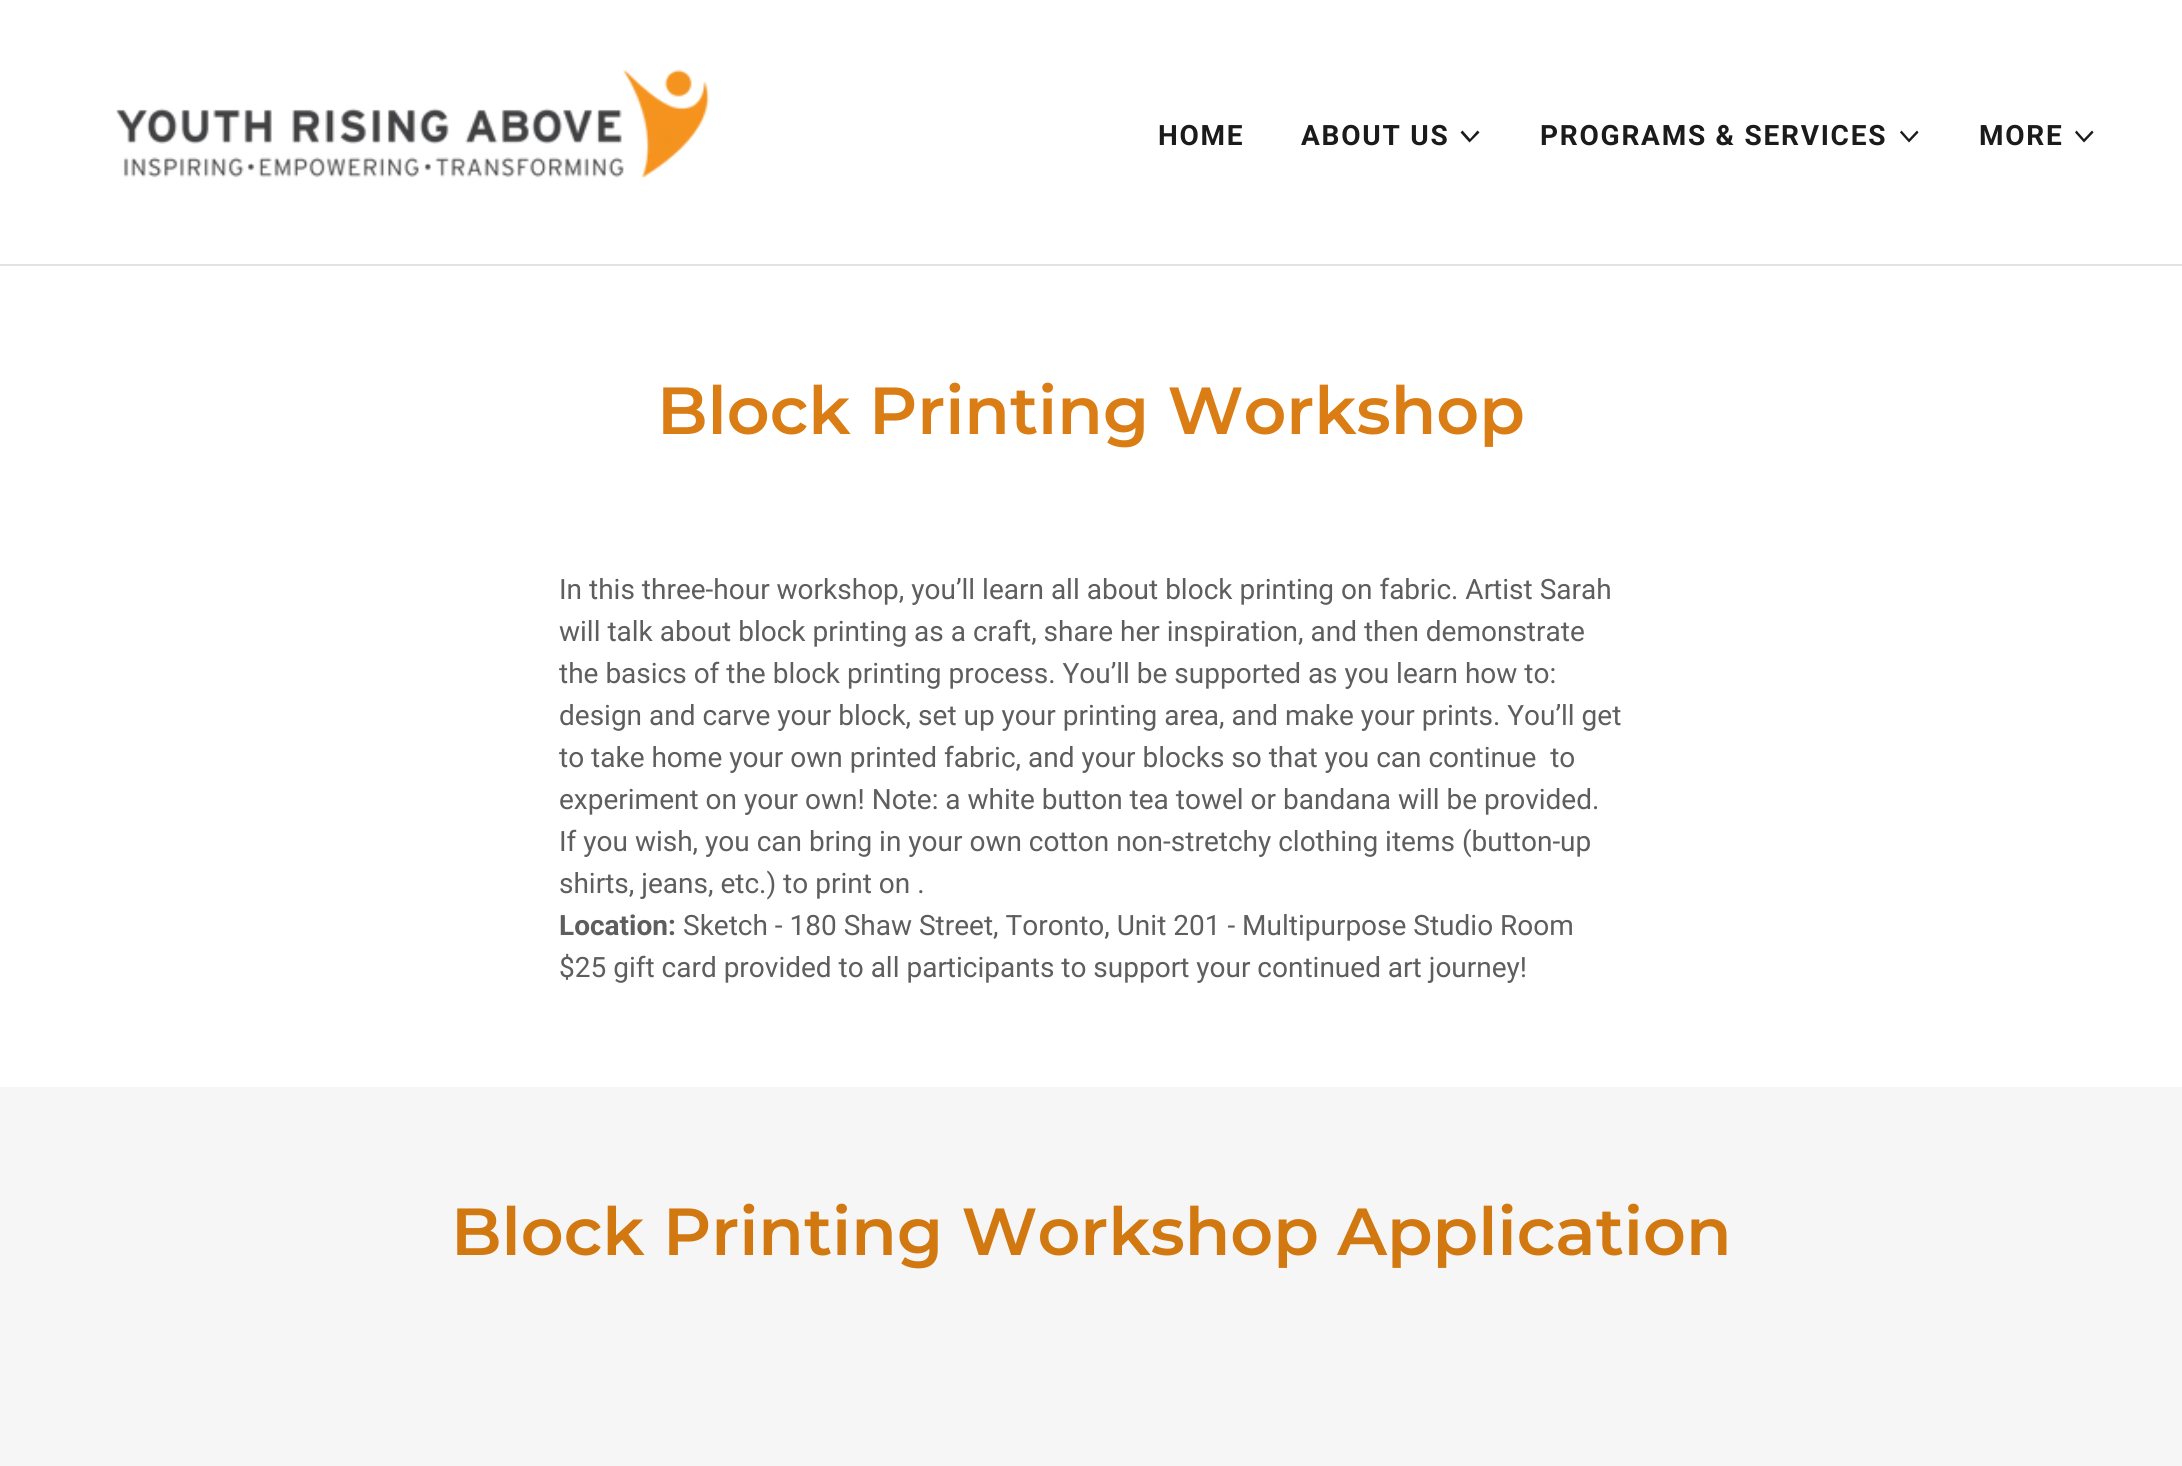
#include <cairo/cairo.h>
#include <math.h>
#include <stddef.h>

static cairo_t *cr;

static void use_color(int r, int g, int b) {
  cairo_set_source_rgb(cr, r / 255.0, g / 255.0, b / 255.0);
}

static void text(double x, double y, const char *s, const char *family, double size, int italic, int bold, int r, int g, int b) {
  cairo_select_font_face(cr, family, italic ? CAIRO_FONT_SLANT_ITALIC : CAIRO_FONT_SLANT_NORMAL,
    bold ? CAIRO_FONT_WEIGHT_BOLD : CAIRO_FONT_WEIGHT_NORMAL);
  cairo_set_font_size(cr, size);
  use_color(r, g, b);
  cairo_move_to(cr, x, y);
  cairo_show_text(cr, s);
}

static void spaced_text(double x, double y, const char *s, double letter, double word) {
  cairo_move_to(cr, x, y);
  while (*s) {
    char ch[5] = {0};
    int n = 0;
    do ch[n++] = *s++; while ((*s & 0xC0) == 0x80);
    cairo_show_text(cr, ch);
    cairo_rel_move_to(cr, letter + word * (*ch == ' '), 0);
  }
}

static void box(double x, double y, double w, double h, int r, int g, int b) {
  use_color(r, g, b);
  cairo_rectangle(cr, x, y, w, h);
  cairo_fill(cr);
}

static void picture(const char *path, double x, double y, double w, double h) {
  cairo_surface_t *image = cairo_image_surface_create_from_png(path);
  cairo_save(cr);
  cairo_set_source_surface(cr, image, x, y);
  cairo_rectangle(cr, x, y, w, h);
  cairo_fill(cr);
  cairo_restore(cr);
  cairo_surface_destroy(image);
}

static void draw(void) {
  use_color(255, 255, 255);
  cairo_paint(cr);
  picture("img_01.png", 115, 69, 595, 110);
  use_color(27, 27, 27);
  cairo_set_fill_rule(cr, CAIRO_FILL_RULE_EVEN_ODD);
  cairo_new_path(cr);
  cairo_move_to(cr, 1477.5, 130.5);
  cairo_line_to(cr, 1470, 139);
  cairo_line_to(cr, 1462.5, 130.5);
  cairo_line_to(cr, 1460.5, 132.5);
  cairo_line_to(cr, 1469.5, 142.5);
  cairo_line_to(cr, 1479.5, 132.5);
  cairo_close_path(cr);
  cairo_fill(cr);
  cairo_new_path(cr);
  cairo_move_to(cr, 1917, 130.5);
  cairo_line_to(cr, 1909, 139);
  cairo_line_to(cr, 1901.5, 130.5);
  cairo_line_to(cr, 1900, 132.5);
  cairo_line_to(cr, 1909, 142.5);
  cairo_line_to(cr, 1918.5, 132.5);
  cairo_close_path(cr);
  cairo_fill(cr);
  cairo_new_path(cr);
  cairo_move_to(cr, 2092, 130.5);
  cairo_line_to(cr, 2084, 139);
  cairo_line_to(cr, 2076.5, 130.5);
  cairo_line_to(cr, 2075, 132.5);
  cairo_line_to(cr, 2084, 142.5);
  cairo_line_to(cr, 2093.5, 132.5);
  cairo_close_path(cr);
  cairo_fill(cr);
  box(0, 264, 2182, 2, 226, 226, 226);
  box(0, 1087, 2182, 379, 246, 246, 246);
  cairo_select_font_face(cr, "Roboto", CAIRO_FONT_SLANT_NORMAL, CAIRO_FONT_WEIGHT_BOLD);
  cairo_set_font_size(cr, 28);
  use_color(27, 27, 27);
  spaced_text(1158, 145, "HOME", 1.75, 0);
  spaced_text(1301, 145, "ABOUT US", 1.75, 0);
  spaced_text(1540, 145, "PROGRAMS & SERVICES", 1.75, 0);
  spaced_text(1979, 145, "MORE", 1.75, 0);
  text(657, 434, "Block Printing Workshop", "Montserrat SemiBold", 66.5, 0, 0, 217, 125, 20);
  text(559, 599, "In this three-hour workshop, you’ll learn all about block printing on fabric. Artist Sarah", "Roboto", 28, 0, 0, 94, 94, 94);
  text(559, 641, "will talk about block printing as a craft, share her inspiration, and then demonstrate", "Roboto", 28, 0, 0, 94, 94, 94);
  text(559, 683, "the basics of the block printing process. You’ll be supported as you learn how to:", "Roboto", 28, 0, 0, 94, 94, 94);
  text(559, 725, "design and carve your block, set up your printing area, and make your prints. You’ll get", "Roboto", 28, 0, 0, 94, 94, 94);
  text(559, 767, "to take home your own printed fabric, and your blocks so that you can continue  to", "Roboto", 28, 0, 0, 94, 94, 94);
  text(559, 809, "experiment on your own! Note: a white button tea towel or bandana will be provided.", "Roboto", 28, 0, 0, 94, 94, 94);
  text(559, 851, "If you wish, you can bring in your own cotton non-stretchy clothing items (button-up", "Roboto", 28, 0, 0, 94, 94, 94);
  text(559, 893, "shirts, jeans, etc.) to print on .", "Roboto", 28, 0, 0, 94, 94, 94);
  text(559, 935, "Location:", "Roboto", 28, 0, 1, 94, 94, 94);
  text(683, 935, "Sketch - 180 Shaw Street, Toronto, Unit 201 - Multipurpose Studio Room", "Roboto", 28, 0, 0, 94, 94, 94);
  text(559, 977, "$25 gift card provided to all participants to support your continued art journey!", "Roboto", 28, 0, 0, 94, 94, 94);
  text(451, 1255, "Block Printing Workshop Application", "Montserrat SemiBold", 66.5, 0, 0, 209, 120, 17);
}

int main(void) {
  cairo_surface_t *surface = cairo_image_surface_create(CAIRO_FORMAT_RGB24, 2182, 1466);
  cr = cairo_create(surface);
  cairo_font_options_t *options = cairo_font_options_create();
  cairo_font_options_set_hint_metrics(options, CAIRO_HINT_METRICS_OFF);
  cairo_font_options_set_hint_style(options, CAIRO_HINT_STYLE_NONE);
  cairo_set_font_options(cr, options);
  cairo_set_miter_limit(cr, 4);
  draw();
  cairo_surface_write_to_png(surface, "out.png");
  cairo_font_options_destroy(options);
  cairo_destroy(cr);
  cairo_surface_destroy(surface);
  return 0;
}
